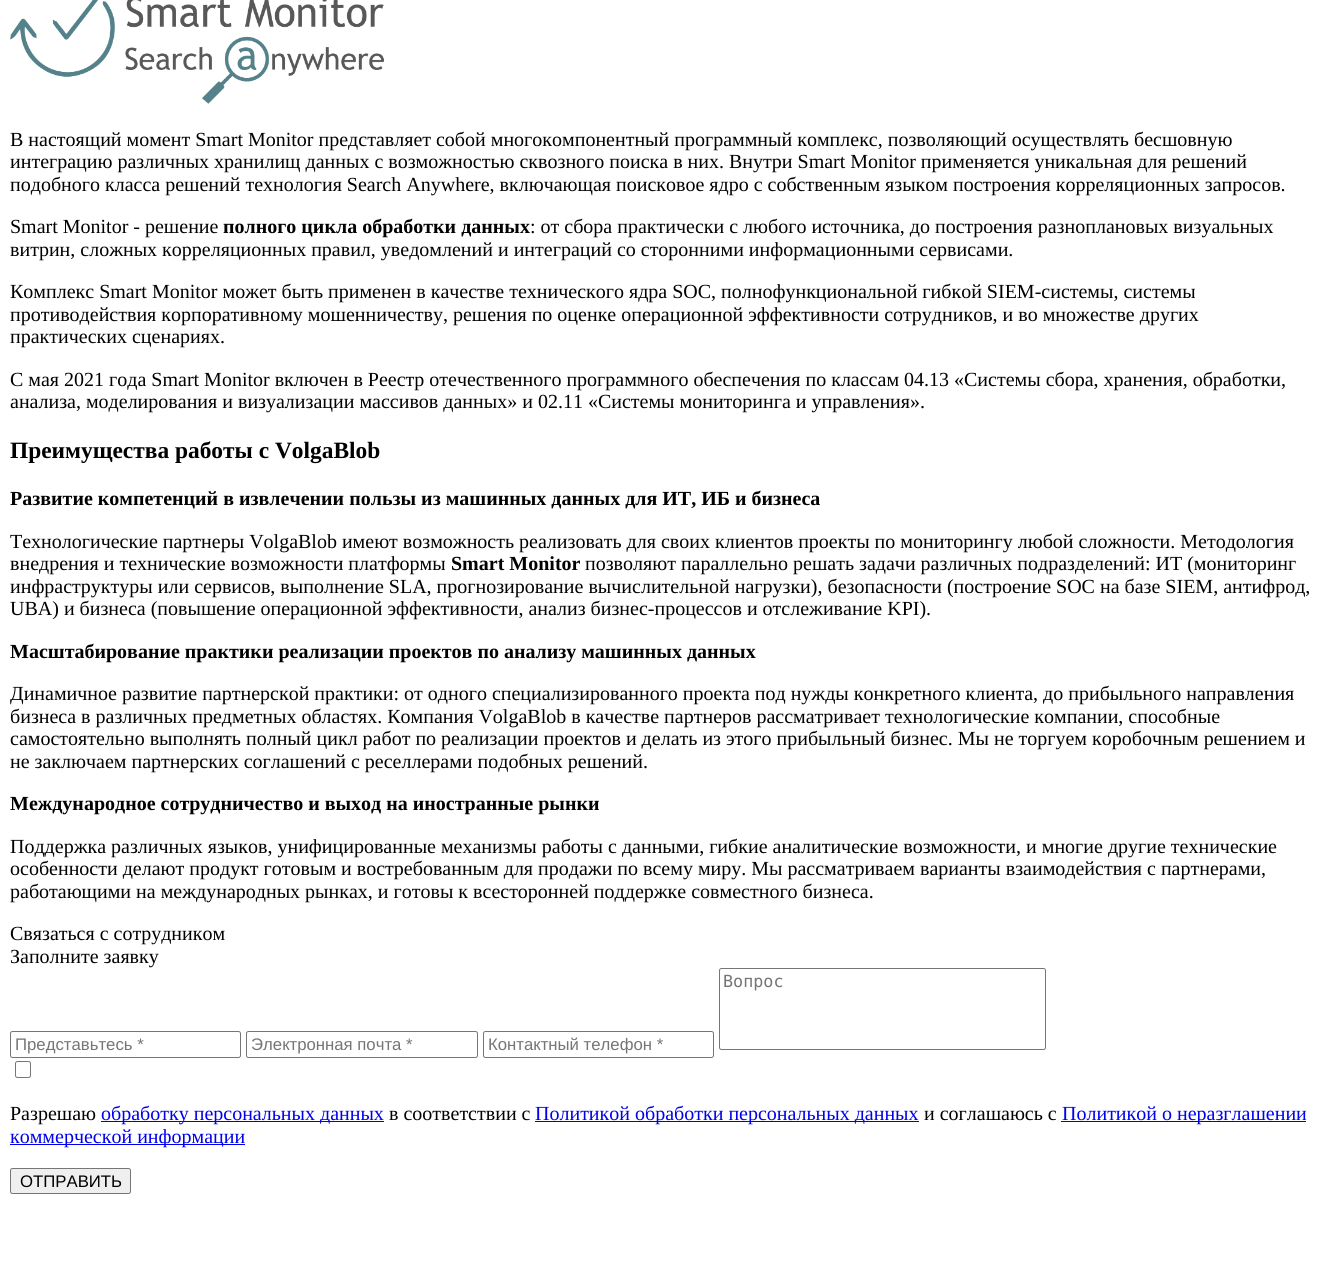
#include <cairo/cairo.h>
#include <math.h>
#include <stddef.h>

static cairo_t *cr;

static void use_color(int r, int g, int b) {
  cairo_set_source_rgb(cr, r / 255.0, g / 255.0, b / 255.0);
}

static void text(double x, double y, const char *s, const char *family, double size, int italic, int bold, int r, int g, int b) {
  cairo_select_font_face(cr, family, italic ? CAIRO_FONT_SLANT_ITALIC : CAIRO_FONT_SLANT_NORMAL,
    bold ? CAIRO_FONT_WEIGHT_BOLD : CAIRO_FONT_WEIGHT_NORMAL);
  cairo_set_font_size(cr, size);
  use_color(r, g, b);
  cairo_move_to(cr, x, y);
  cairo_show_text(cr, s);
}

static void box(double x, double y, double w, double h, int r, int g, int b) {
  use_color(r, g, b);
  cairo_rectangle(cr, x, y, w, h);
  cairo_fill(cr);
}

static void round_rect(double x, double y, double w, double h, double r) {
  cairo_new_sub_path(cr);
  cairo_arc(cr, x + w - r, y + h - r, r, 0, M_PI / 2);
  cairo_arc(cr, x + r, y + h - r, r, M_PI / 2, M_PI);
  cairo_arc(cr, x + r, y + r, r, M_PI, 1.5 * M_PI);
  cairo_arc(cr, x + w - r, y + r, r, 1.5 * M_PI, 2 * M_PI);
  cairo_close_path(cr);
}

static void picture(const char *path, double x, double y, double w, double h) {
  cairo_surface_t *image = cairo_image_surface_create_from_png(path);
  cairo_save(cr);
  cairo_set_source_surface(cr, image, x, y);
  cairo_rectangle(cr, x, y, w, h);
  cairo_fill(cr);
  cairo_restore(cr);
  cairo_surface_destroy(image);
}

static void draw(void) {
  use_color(255, 255, 255);
  cairo_paint(cr);
  picture("img_01.png", 10, 0, 374, 104);
  round_rect(719.5, 968.5, 326, 81, 2);
  use_color(118, 118, 118);
  cairo_set_line_width(cr, 1);
  cairo_stroke(cr);
  round_rect(10.5, 1031.5, 230, 26, 2);
  cairo_stroke(cr);
  round_rect(246.5, 1031.5, 231, 26, 2);
  cairo_stroke(cr);
  round_rect(483.5, 1031.5, 230, 26, 2);
  cairo_stroke(cr);
  round_rect(15.5, 1061.5, 15, 16, 2);
  cairo_stroke(cr);
  box(101, 1121, 283, 1, 0, 0, 238);
  box(535, 1121, 384, 1, 0, 0, 238);
  box(1061, 1121, 245, 1, 0, 0, 238);
  box(10, 1144, 235, 1, 0, 0, 238);
  use_color(239, 239, 239);
  round_rect(10.5, 1168.5, 120, 25, 2);
  cairo_fill_preserve(cr);
  use_color(118, 118, 118);
  cairo_stroke(cr);
  text(10, 146, "В настоящий момент Smart Monitor представляет собой многокомпонентный программный комплекс, позволяющий осуществлять бесшовную", "Liberation Serif", 20, 0, 0, 0, 0, 0);
  text(10, 168, "интеграцию различных хранилищ данных с возможностью сквозного поиска в них. Внутри Smart Monitor применяется уникальная для решений", "Liberation Serif", 20, 0, 0, 0, 0, 0);
  text(10, 191, "подобного класса решений технология Search Anywhere, включающая поисковое ядро с собственным языком построения корреляционных запросов.", "Liberation Serif", 20, 0, 0, 0, 0, 0);
  text(10, 233, "Smart Monitor - решение", "Liberation Serif", 20, 0, 0, 0, 0, 0);
  text(223, 233, "полного цикла обработки данных", "Liberation Serif", 20, 0, 1, 0, 0, 0);
  text(530, 233, ": от сбора практически с любого источника, до построения разноплановых визуальных", "Liberation Serif", 20, 0, 0, 0, 0, 0);
  text(10, 256, "витрин, сложных корреляционных правил, уведомлений и интеграций со сторонними информационными сервисами.", "Liberation Serif", 20, 0, 0, 0, 0, 0);
  text(10, 298, "Комплекс Smart Monitor может быть применен в качестве технического ядра SOC, полнофункциональной гибкой SIEM-системы, системы", "Liberation Serif", 20, 0, 0, 0, 0, 0);
  text(10, 321, "противодействия корпоративному мошенничеству, решения по оценке операционной эффективности сотрудников, и во множестве других", "Liberation Serif", 20, 0, 0, 0, 0, 0);
  text(10, 343, "практических сценариях.", "Liberation Serif", 20, 0, 0, 0, 0, 0);
  text(10, 386, "С мая 2021 года Smart Monitor включен в Реестр отечественного программного обеспечения по классам 04.13 «Системы сбора, хранения, обработки,", "Liberation Serif", 20, 0, 0, 0, 0, 0);
  text(10, 408, "анализа, моделирования и визуализации массивов данных» и 02.11 «Системы мониторинга и управления».", "Liberation Serif", 20, 0, 0, 0, 0, 0);
  text(10, 458, "Преимущества работы с VolgaBlob", "Liberation Serif", 23.4, 0, 1, 0, 0, 0);
  text(10, 505, "Развитие компетенций в извлечении пользы из машинных данных для ИТ, ИБ и бизнеса", "Liberation Serif", 20, 0, 1, 0, 0, 0);
  text(10, 548, "Технологические партнеры VolgaBlob имеют возможность реализовать для своих клиентов проекты по мониторингу любой сложности. Методология", "Liberation Serif", 20, 0, 0, 0, 0, 0);
  text(10, 570, "внедрения и технические возможности платформы", "Liberation Serif", 20, 0, 0, 0, 0, 0);
  text(451, 570, "Smart Monitor", "Liberation Serif", 20, 0, 1, 0, 0, 0);
  text(585, 570, "позволяют параллельно решать задачи различных подразделений: ИТ (мониторинг", "Liberation Serif", 20, 0, 0, 0, 0, 0);
  text(10, 593, "инфраструктуры или сервисов, выполнение SLA, прогнозирование вычислительной нагрузки), безопасности (построение SOC на базе SIEM, антифрод,", "Liberation Serif", 20, 0, 0, 0, 0, 0);
  text(10, 615, "UBA) и бизнеса (повышение операционной эффективности, анализ бизнес-процессов и отслеживание KPI).", "Liberation Serif", 20, 0, 0, 0, 0, 0);
  text(10, 658, "Масштабирование практики реализации проектов по анализу машинных данных", "Liberation Serif", 20, 0, 1, 0, 0, 0);
  text(10, 700, "Динамичное развитие партнерской практики: от одного специализированного проекта под нужды конкретного клиента, до прибыльного направления", "Liberation Serif", 20, 0, 0, 0, 0, 0);
  text(10, 723, "бизнеса в различных предметных областях. Компания VolgaBlob в качестве партнеров рассматривает технологические компании, способные", "Liberation Serif", 20, 0, 0, 0, 0, 0);
  text(10, 745, "самостоятельно выполнять полный цикл работ по реализации проектов и делать из этого прибыльный бизнес. Мы не торгуем коробочным решением и", "Liberation Serif", 20, 0, 0, 0, 0, 0);
  text(10, 768, "не заключаем партнерских соглашений с реселлерами подобных решений.", "Liberation Serif", 20, 0, 0, 0, 0, 0);
  text(10, 810, "Международное сотрудничество и выход на иностранные рынки", "Liberation Serif", 20, 0, 1, 0, 0, 0);
  text(10, 853, "Поддержка различных языков, унифицированные механизмы работы с данными, гибкие аналитические возможности, и многие другие технические", "Liberation Serif", 20, 0, 0, 0, 0, 0);
  text(10, 875, "особенности делают продукт готовым и востребованным для продажи по всему миру. Мы рассматриваем варианты взаимодействия с партнерами,", "Liberation Serif", 20, 0, 0, 0, 0, 0);
  text(10, 898, "работающими на международных рынках, и готовы к всесторонней поддержке совместного бизнеса.", "Liberation Serif", 20, 0, 0, 0, 0, 0);
  text(10, 940, "Связаться с сотрудником", "Liberation Serif", 20, 0, 0, 0, 0, 0);
  text(10, 963, "Заполните заявку", "Liberation Serif", 20, 0, 0, 0, 0, 0);
  text(723, 987, "Вопрос", "DejaVu Sans Mono", 16.75, 0, 0, 117, 117, 117);
  text(15, 1050, "Представьтесь *", "Liberation Sans", 16.75, 0, 0, 117, 117, 117);
  text(251, 1050, "Электронная почта *", "Liberation Sans", 16.75, 0, 0, 117, 117, 117);
  text(488, 1050, "Контактный телефон *", "Liberation Sans", 16.75, 0, 0, 117, 117, 117);
  text(10, 1120, "Разрешаю", "Liberation Serif", 20, 0, 0, 0, 0, 0);
  text(101, 1120, "обработку персональных данных", "Liberation Serif", 20, 0, 0, 0, 0, 238);
  text(389, 1120, "в соответствии с", "Liberation Serif", 20, 0, 0, 0, 0, 0);
  text(535, 1120, "Политикой обработки персональных данных", "Liberation Serif", 20, 0, 0, 0, 0, 238);
  text(924, 1120, "и соглашаюсь с", "Liberation Serif", 20, 0, 0, 0, 0, 0);
  text(1062, 1120, "Политикой о неразглашении", "Liberation Serif", 20, 0, 0, 0, 0, 238);
  text(10, 1143, "коммерческой информации", "Liberation Serif", 20, 0, 0, 0, 0, 238);
  text(20, 1187, "ОТПРАВИТЬ", "Liberation Sans", 16.75, 0, 0, 0, 0, 0);
}

int main(void) {
  cairo_surface_t *surface = cairo_image_surface_create(CAIRO_FORMAT_RGB24, 1324, 1286);
  cr = cairo_create(surface);
  cairo_font_options_t *options = cairo_font_options_create();
  cairo_font_options_set_hint_metrics(options, CAIRO_HINT_METRICS_OFF);
  cairo_font_options_set_hint_style(options, CAIRO_HINT_STYLE_NONE);
  cairo_set_font_options(cr, options);
  cairo_set_miter_limit(cr, 4);
  draw();
  cairo_surface_write_to_png(surface, "out.png");
  cairo_font_options_destroy(options);
  cairo_destroy(cr);
  cairo_surface_destroy(surface);
  return 0;
}
